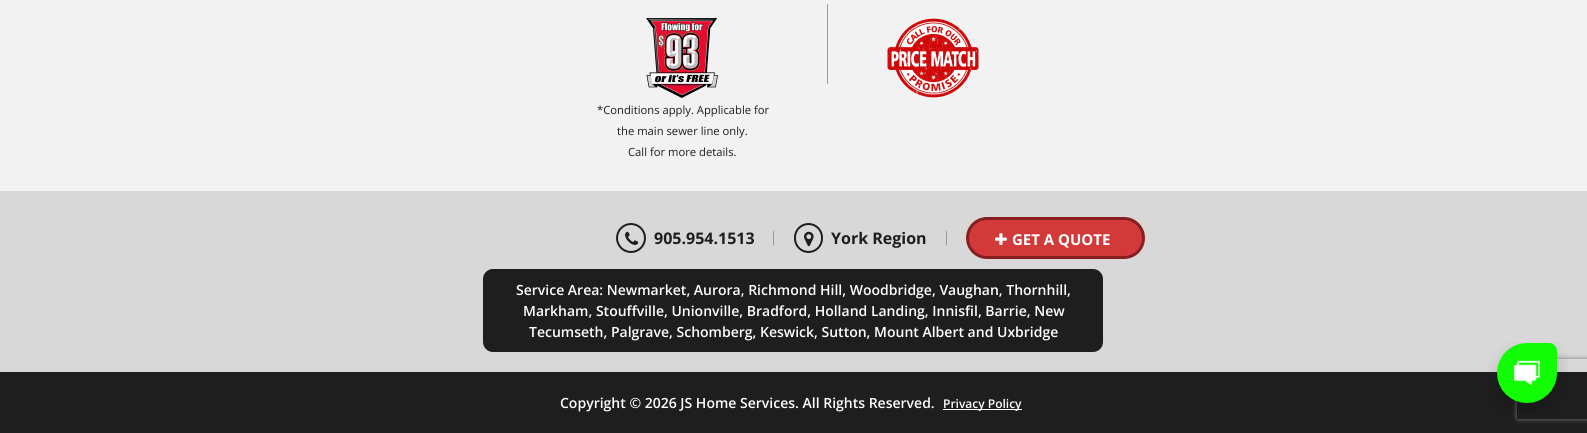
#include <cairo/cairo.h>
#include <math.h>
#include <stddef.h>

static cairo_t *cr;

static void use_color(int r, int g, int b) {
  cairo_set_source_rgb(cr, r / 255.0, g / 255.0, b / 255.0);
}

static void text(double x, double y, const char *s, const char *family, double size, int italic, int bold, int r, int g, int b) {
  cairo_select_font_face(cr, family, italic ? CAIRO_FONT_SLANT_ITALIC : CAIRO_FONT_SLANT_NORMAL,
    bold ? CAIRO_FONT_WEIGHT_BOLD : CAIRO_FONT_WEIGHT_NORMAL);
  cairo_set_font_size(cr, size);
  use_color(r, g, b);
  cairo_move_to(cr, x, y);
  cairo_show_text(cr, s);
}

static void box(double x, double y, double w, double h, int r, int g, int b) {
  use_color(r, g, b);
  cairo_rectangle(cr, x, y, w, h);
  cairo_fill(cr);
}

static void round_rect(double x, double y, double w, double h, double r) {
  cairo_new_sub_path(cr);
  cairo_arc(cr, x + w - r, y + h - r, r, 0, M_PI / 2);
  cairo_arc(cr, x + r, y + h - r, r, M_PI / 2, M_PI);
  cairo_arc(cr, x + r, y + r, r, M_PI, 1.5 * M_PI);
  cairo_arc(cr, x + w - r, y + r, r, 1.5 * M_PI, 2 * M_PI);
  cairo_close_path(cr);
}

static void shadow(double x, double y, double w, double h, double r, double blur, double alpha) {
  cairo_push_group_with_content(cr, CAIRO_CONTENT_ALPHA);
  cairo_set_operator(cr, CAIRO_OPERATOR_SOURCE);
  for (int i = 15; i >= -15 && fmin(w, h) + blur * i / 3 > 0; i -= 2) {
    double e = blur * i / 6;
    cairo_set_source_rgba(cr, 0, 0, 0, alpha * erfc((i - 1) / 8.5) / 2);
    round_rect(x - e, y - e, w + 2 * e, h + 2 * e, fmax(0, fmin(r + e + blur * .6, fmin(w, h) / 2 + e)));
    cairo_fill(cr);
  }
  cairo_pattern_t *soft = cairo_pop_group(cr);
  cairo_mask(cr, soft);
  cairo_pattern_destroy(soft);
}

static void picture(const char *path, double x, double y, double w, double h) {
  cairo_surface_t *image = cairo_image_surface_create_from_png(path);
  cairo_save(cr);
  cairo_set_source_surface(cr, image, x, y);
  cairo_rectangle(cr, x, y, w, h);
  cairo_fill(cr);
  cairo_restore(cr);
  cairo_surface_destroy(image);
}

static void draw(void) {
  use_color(242, 242, 242);
  cairo_paint(cr);
  picture("img_01.png", 887, 18, 92, 80);
  picture("img_02.png", 646, 18, 72, 80);
  box(827, 4, 1, 80, 155, 155, 155);
  box(0, 191, 1587, 181, 216, 216, 216);
  cairo_arc(cr, 631, 238, 14, 0, 2 * M_PI);
  use_color(30, 30, 30);
  cairo_stroke(cr);
  picture("img_03.png", 625, 231, 14, 14);
  box(773, 231, 1, 14, 155, 155, 155);
  round_rect(795, 224, 27, 28, 13.5);
  use_color(30, 30, 30);
  cairo_stroke(cr);
  picture("img_04.png", 804, 231, 10, 16);
  box(946, 231, 1, 14, 155, 155, 155);
  use_color(210, 58, 58);
  round_rect(967.5, 218.5, 176, 39, 19.5);
  cairo_fill_preserve(cr);
  use_color(135, 31, 31);
  cairo_set_line_width(cr, 3);
  cairo_stroke(cr);
  picture("img_05.png", 995, 233, 12, 12);
  use_color(30, 30, 30);
  round_rect(483, 269, 620, 83, 10);
  cairo_fill(cr);
  box(0, 372, 1587, 61, 30, 30, 30);
  box(943, 409, 79, 1, 255, 255, 255);
  cairo_save(cr);
  cairo_set_fill_rule(cr, CAIRO_FILL_RULE_EVEN_ODD);
  cairo_new_path(cr);
  cairo_move_to(cr, 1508, 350);
  cairo_line_to(cr, 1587, 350);
  cairo_line_to(cr, 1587, 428);
  cairo_line_to(cr, 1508, 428);
  cairo_close_path(cr);
  cairo_move_to(cr, 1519, 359);
  cairo_line_to(cr, 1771, 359);
  cairo_curve_to(cr, 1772, 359, 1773, 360, 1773, 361);
  cairo_line_to(cr, 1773, 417);
  cairo_curve_to(cr, 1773, 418, 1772, 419, 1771, 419);
  cairo_line_to(cr, 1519, 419);
  cairo_curve_to(cr, 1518, 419, 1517, 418, 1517, 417);
  cairo_line_to(cr, 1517, 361);
  cairo_curve_to(cr, 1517, 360, 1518, 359, 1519, 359);
  cairo_close_path(cr);
  cairo_clip(cr);
  use_color(128, 128, 128);
  shadow(1517, 359, 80, 60, 2, 2.5, 1);
  cairo_restore(cr);
  picture("img_06.png", 1487, 342, 81, 73);
  text(597, 114, "*Conditions apply. Applicable for", "Open Sans", 11.25, 0, 0, 30, 30, 30);
  text(617, 135, "the main sewer line only.", "Open Sans", 11.25, 0, 0, 30, 30, 30);
  text(628, 156, "Call for more details.", "Open Sans", 11.25, 0, 0, 30, 30, 30);
  text(654, 244, "905.954.1513", "Open Sans", 16, 0, 1, 30, 30, 30);
  text(831, 244, "York Region", "Open Sans", 16, 0, 1, 30, 30, 30);
  text(1012, 245, "GET A QUOTE", "Open Sans", 15, 0, 1, 255, 255, 255);
  text(516, 295, "Service Area: Newmarket, Aurora, Richmond Hill, Woodbridge, Vaughan, Thornhill,", "Open Sans SemiBold", 14, 0, 0, 255, 255, 255);
  text(523, 316, "Markham, Stouffville, Unionville, Bradford, Holland Landing, Innisfil, Barrie, New", "Open Sans SemiBold", 14, 0, 0, 255, 255, 255);
  text(529, 337, "Tecumseth, Palgrave, Schomberg, Keswick, Sutton, Mount Albert and Uxbridge", "Open Sans SemiBold", 14, 0, 0, 255, 255, 255);
  text(560, 408, "Copyright © 2026 JS Home Services. All Rights Reserved.", "Open Sans SemiBold", 14, 0, 0, 255, 255, 255);
  text(943, 408, "Privacy Policy", "Open Sans SemiBold", 12, 0, 0, 255, 255, 255);
}

int main(void) {
  cairo_surface_t *surface = cairo_image_surface_create(CAIRO_FORMAT_RGB24, 1587, 433);
  cr = cairo_create(surface);
  cairo_font_options_t *options = cairo_font_options_create();
  cairo_font_options_set_hint_metrics(options, CAIRO_HINT_METRICS_OFF);
  cairo_font_options_set_hint_style(options, CAIRO_HINT_STYLE_NONE);
  cairo_set_font_options(cr, options);
  cairo_set_miter_limit(cr, 4);
  draw();
  cairo_surface_write_to_png(surface, "out.png");
  cairo_font_options_destroy(options);
  cairo_destroy(cr);
  cairo_surface_destroy(surface);
  return 0;
}
